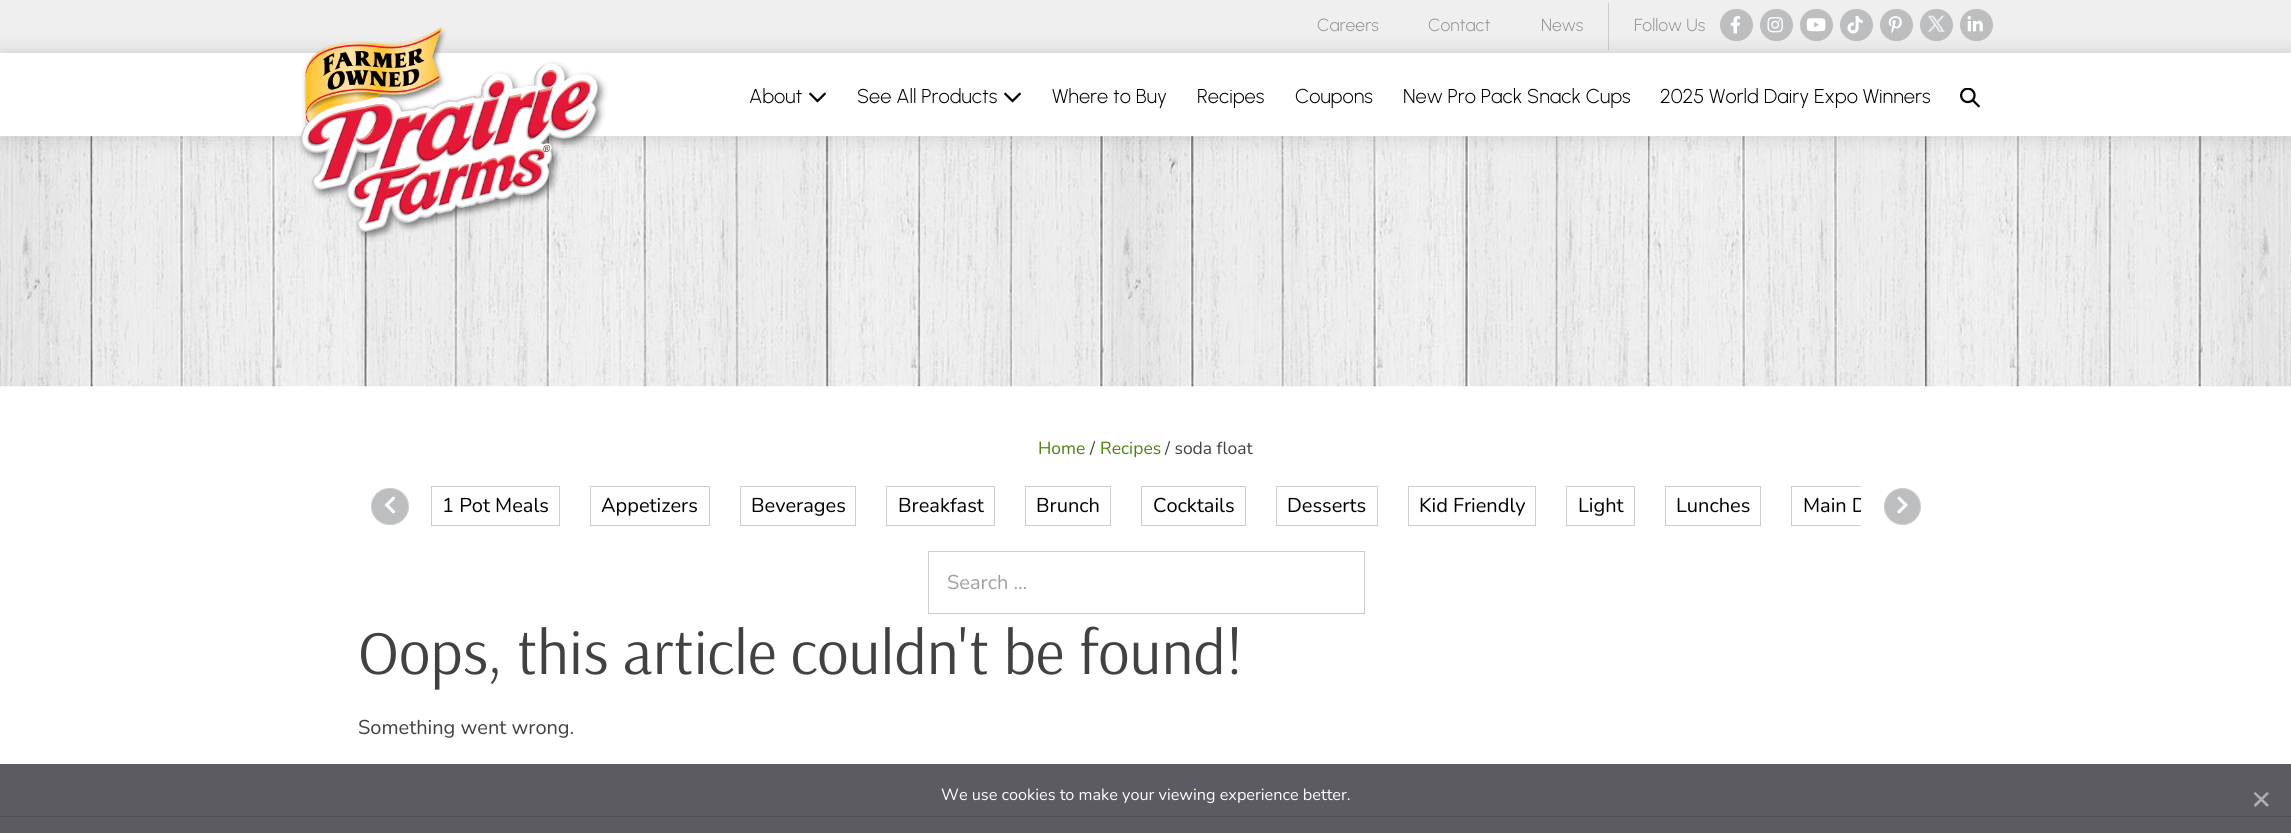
#include <cairo/cairo.h>
#include <math.h>
#include <stddef.h>

static cairo_t *cr;

static void use_color(int r, int g, int b) {
  cairo_set_source_rgb(cr, r / 255.0, g / 255.0, b / 255.0);
}

static void text(double x, double y, const char *s, const char *family, double size, int italic, int bold, int r, int g, int b) {
  cairo_select_font_face(cr, family, italic ? CAIRO_FONT_SLANT_ITALIC : CAIRO_FONT_SLANT_NORMAL,
    bold ? CAIRO_FONT_WEIGHT_BOLD : CAIRO_FONT_WEIGHT_NORMAL);
  cairo_set_font_size(cr, size);
  use_color(r, g, b);
  cairo_move_to(cr, x, y);
  cairo_show_text(cr, s);
}

static void box(double x, double y, double w, double h, int r, int g, int b) {
  use_color(r, g, b);
  cairo_rectangle(cr, x, y, w, h);
  cairo_fill(cr);
}

static void round_rect(double x, double y, double w, double h, double r) {
  cairo_new_sub_path(cr);
  cairo_arc(cr, x + w - r, y + h - r, r, 0, M_PI / 2);
  cairo_arc(cr, x + r, y + h - r, r, M_PI / 2, M_PI);
  cairo_arc(cr, x + r, y + r, r, M_PI, 1.5 * M_PI);
  cairo_arc(cr, x + w - r, y + r, r, 1.5 * M_PI, 2 * M_PI);
  cairo_close_path(cr);
}

static void shadow(double x, double y, double w, double h, double r, double blur, double alpha) {
  cairo_push_group_with_content(cr, CAIRO_CONTENT_ALPHA);
  cairo_set_operator(cr, CAIRO_OPERATOR_SOURCE);
  for (int i = 15; i >= -15 && fmin(w, h) + blur * i / 3 > 0; i -= 2) {
    double e = blur * i / 6;
    cairo_set_source_rgba(cr, 0, 0, 0, alpha * erfc((i - 1) / 8.5) / 2);
    round_rect(x - e, y - e, w + 2 * e, h + 2 * e, fmax(0, fmin(r + e + blur * .6, fmin(w, h) / 2 + e)));
    cairo_fill(cr);
  }
  cairo_pattern_t *soft = cairo_pop_group(cr);
  cairo_mask(cr, soft);
  cairo_pattern_destroy(soft);
}

static void picture(const char *path, double x, double y, double w, double h) {
  cairo_surface_t *image = cairo_image_surface_create_from_png(path);
  cairo_save(cr);
  cairo_set_source_surface(cr, image, x, y);
  cairo_rectangle(cr, x, y, w, h);
  cairo_fill(cr);
  cairo_restore(cr);
  cairo_surface_destroy(image);
}

static void draw(void) {
  use_color(255, 255, 255);
  cairo_paint(cr);
  box(0, 764, 2291, 69, 91, 91, 97);
  box(0, 0, 2291, 53, 239, 239, 239);
  box(1608, 3, 1, 47, 204, 204, 204);
  use_color(188, 190, 192);
  round_rect(1720, 9, 33, 32, 16);
  cairo_fill(cr);
  picture("img_01.png", 1730, 16, 11, 18);
  round_rect(1760, 9, 33, 32, 16);
  cairo_fill(cr);
  picture("img_02.png", 1767, 17, 16, 16);
  round_rect(1800, 9, 33, 32, 16);
  cairo_fill(cr);
  picture("img_03.png", 1806, 18, 20, 14);
  round_rect(1840, 9, 33, 32, 16);
  cairo_fill(cr);
  picture("img_04.png", 1847, 15, 16, 19);
  round_rect(1880, 9, 33, 32, 16);
  cairo_fill(cr);
  picture("img_05.png", 1888, 16, 14, 17);
  round_rect(1920, 9, 33, 32, 16);
  cairo_fill(cr);
  picture("img_06.png", 1928, 15, 17, 17);
  round_rect(1960, 9, 33, 32, 16);
  cairo_fill(cr);
  picture("img_07.png", 1967, 16, 16, 16);
  picture("img_11.png", 0, 136, 2291, 251);
  cairo_save(cr);
  cairo_set_fill_rule(cr, CAIRO_FILL_RULE_EVEN_ODD);
  cairo_new_path(cr);
  cairo_move_to(cr, 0, 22);
  cairo_line_to(cr, 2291, 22);
  cairo_line_to(cr, 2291, 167);
  cairo_line_to(cr, 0, 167);
  cairo_close_path(cr);
  cairo_move_to(cr, 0, 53);
  cairo_line_to(cr, 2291, 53);
  cairo_line_to(cr, 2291, 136);
  cairo_line_to(cr, 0, 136);
  cairo_close_path(cr);
  cairo_clip(cr);
  use_color(0, 0, 0);
  shadow(0, 53, 2291, 83, 0, 10, 0.15);
  cairo_restore(cr);
  picture("img_08.png", 298, 27, 310, 215);
  picture("img_09.png", 809, 92, 17, 11);
  picture("img_09.png", 1004, 92, 17, 11);
  picture("img_10.png", 1960, 88, 20, 20);
  round_rect(371.5, 488.5, 37, 36, 18);
  cairo_fill_preserve(cr);
  use_color(204, 204, 204);
  cairo_set_line_width(cr, 1);
  cairo_stroke(cr);
  picture("img_12.png", 384, 496, 12, 18);
  cairo_rectangle(cr, 431.5, 486.5, 128, 39);
  cairo_stroke(cr);
  cairo_rectangle(cr, 590.5, 486.5, 119, 39);
  cairo_stroke(cr);
  cairo_rectangle(cr, 740.5, 486.5, 115, 39);
  cairo_stroke(cr);
  cairo_rectangle(cr, 886.5, 486.5, 108, 39);
  cairo_stroke(cr);
  cairo_rectangle(cr, 1025.5, 486.5, 85, 39);
  cairo_stroke(cr);
  cairo_rectangle(cr, 1141.5, 486.5, 104, 39);
  cairo_stroke(cr);
  cairo_rectangle(cr, 1276.5, 486.5, 101, 39);
  cairo_stroke(cr);
  cairo_rectangle(cr, 1408.5, 486.5, 127, 39);
  cairo_stroke(cr);
  cairo_rectangle(cr, 1566.5, 486.5, 68, 39);
  cairo_stroke(cr);
  cairo_rectangle(cr, 1665.5, 486.5, 95, 39);
  cairo_stroke(cr);
  cairo_save(cr);
  cairo_rectangle(cr, 431, 486, 1430, 40);
  cairo_clip(cr);
  cairo_rectangle(cr, 1791.5, 486.5, 132, 39);
  cairo_stroke(cr);
  cairo_restore(cr);
  use_color(188, 190, 192);
  cairo_arc(cr, 1902.5, 506.5, 18, 0, 2 * M_PI);
  cairo_fill_preserve(cr);
  use_color(204, 204, 204);
  cairo_stroke(cr);
  picture("img_13.png", 1897, 496, 11, 18);
  cairo_rectangle(cr, 928.5, 551.5, 436, 62);
  cairo_stroke(cr);
  box(0, 816, 2291, 1, 81, 81, 87);
  use_color(173, 173, 176);
  cairo_new_path(cr);
  cairo_move_to(cr, 2267, 792);
  cairo_line_to(cr, 2269, 793.5);
  cairo_line_to(cr, 2255.5, 807);
  cairo_line_to(cr, 2253.5, 805);
  cairo_close_path(cr);
  cairo_fill(cr);
  cairo_new_path(cr);
  cairo_move_to(cr, 2253.5, 793.5);
  cairo_line_to(cr, 2255.5, 792);
  cairo_line_to(cr, 2269, 805);
  cairo_line_to(cr, 2267, 807);
  cairo_close_path(cr);
  cairo_fill(cr);
  text(1317, 31, "Careers", "Urbanist Light", 17.5, 0, 0, 148, 148, 148);
  text(1428, 31, "Contact", "Urbanist Light", 17.5, 0, 0, 148, 148, 148);
  text(1541, 31, "News", "Urbanist Light", 17.5, 0, 0, 148, 148, 148);
  text(1634, 31, "Follow Us", "Urbanist Light", 17.5, 0, 0, 148, 148, 148);
  text(749, 103, "About", "Urbanist Light", 20, 0, 0, 0, 0, 0);
  text(857, 103, "See All Products", "Urbanist Light", 20, 0, 0, 0, 0, 0);
  text(1052, 103, "Where to Buy", "Urbanist Light", 20, 0, 0, 0, 0, 0);
  text(1197, 103, "Recipes", "Urbanist Light", 20, 0, 0, 0, 0, 0);
  text(1295, 103, "Coupons", "Urbanist Light", 20, 0, 0, 0, 0, 0);
  text(1403, 103, "New Pro Pack Snack Cups", "Urbanist Light", 20, 0, 0, 0, 0, 0);
  text(1660, 103, "2025 World Dairy Expo Winners", "Urbanist Light", 20, 0, 0, 0, 0, 0);
  text(1038, 454, "Home", "Nunito", 17.5, 0, 0, 75, 130, 12);
  text(1090, 454, "/", "Nunito", 17.5, 0, 0, 65, 64, 66);
  text(1100, 454, "Recipes", "Nunito", 17.5, 0, 0, 75, 130, 12);
  text(1165, 454, "/ soda float", "Nunito", 17.5, 0, 0, 65, 64, 66);
  text(442, 512, "1 Pot Meals", "Nunito", 20, 0, 0, 0, 0, 0);
  text(601, 512, "Appetizers", "Nunito", 20, 0, 0, 0, 0, 0);
  text(751, 512, "Beverages", "Nunito", 20, 0, 0, 0, 0, 0);
  text(898, 512, "Breakfast", "Nunito", 20, 0, 0, 0, 0, 0);
  text(1036, 512, "Brunch", "Nunito", 20, 0, 0, 0, 0, 0);
  text(1153, 512, "Cocktails", "Nunito", 20, 0, 0, 0, 0, 0);
  text(1287, 512, "Desserts", "Nunito", 20, 0, 0, 0, 0, 0);
  text(1419, 512, "Kid Friendly", "Nunito", 20, 0, 0, 0, 0, 0);
  text(1578, 512, "Light", "Nunito", 20, 0, 0, 0, 0, 0);
  text(1676, 512, "Lunches", "Nunito", 20, 0, 0, 0, 0, 0);
  cairo_save(cr);
  cairo_rectangle(cr, 431, 486, 1430, 40);
  cairo_clip(cr);
  text(1803, 512, "Main D", "Nunito", 20, 0, 0, 0, 0, 0);
  cairo_restore(cr);
  text(947, 589, "Search …", "Nunito", 20, 0, 0, 160, 160, 161);
  text(358, 674, "Oops, this article couldn't be found!", "Arsenal", 62.5, 0, 0, 65, 64, 66);
  text(358, 734, "Something went wrong.", "Nunito", 20, 0, 0, 65, 64, 66);
  text(941, 800, "We use cookies to make your viewing experience better.", "Nunito", 16.25, 0, 0, 255, 255, 255);
}

int main(void) {
  cairo_surface_t *surface = cairo_image_surface_create(CAIRO_FORMAT_RGB24, 2291, 833);
  cr = cairo_create(surface);
  cairo_font_options_t *options = cairo_font_options_create();
  cairo_font_options_set_hint_metrics(options, CAIRO_HINT_METRICS_OFF);
  cairo_font_options_set_hint_style(options, CAIRO_HINT_STYLE_NONE);
  cairo_set_font_options(cr, options);
  cairo_set_miter_limit(cr, 4);
  draw();
  cairo_surface_write_to_png(surface, "out.png");
  cairo_font_options_destroy(options);
  cairo_destroy(cr);
  cairo_surface_destroy(surface);
  return 0;
}
